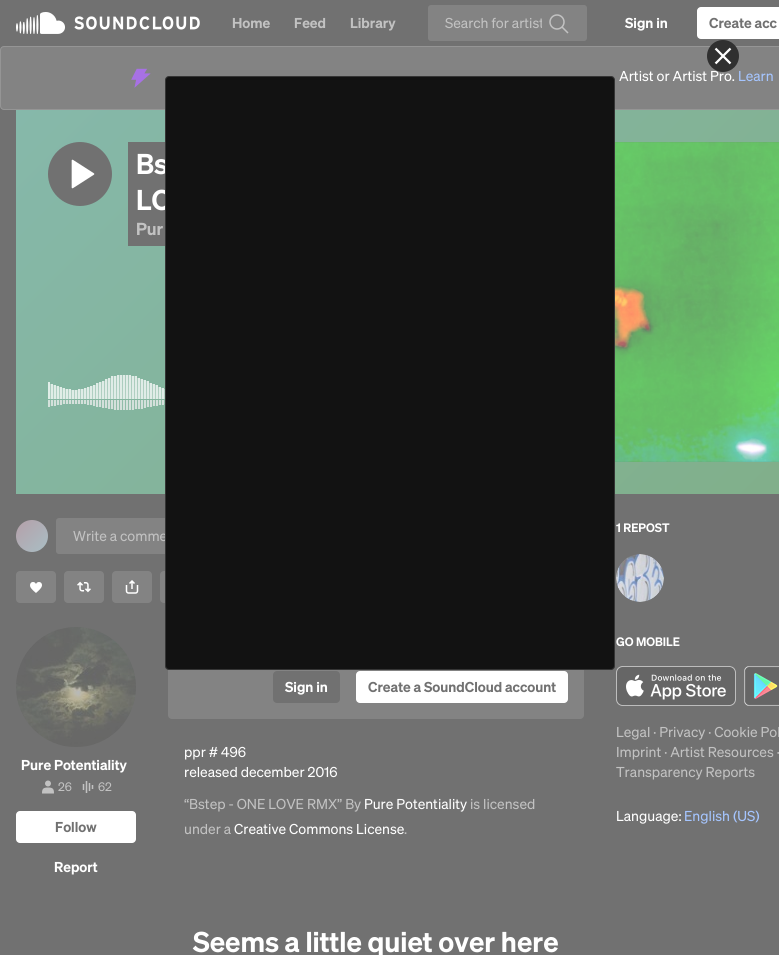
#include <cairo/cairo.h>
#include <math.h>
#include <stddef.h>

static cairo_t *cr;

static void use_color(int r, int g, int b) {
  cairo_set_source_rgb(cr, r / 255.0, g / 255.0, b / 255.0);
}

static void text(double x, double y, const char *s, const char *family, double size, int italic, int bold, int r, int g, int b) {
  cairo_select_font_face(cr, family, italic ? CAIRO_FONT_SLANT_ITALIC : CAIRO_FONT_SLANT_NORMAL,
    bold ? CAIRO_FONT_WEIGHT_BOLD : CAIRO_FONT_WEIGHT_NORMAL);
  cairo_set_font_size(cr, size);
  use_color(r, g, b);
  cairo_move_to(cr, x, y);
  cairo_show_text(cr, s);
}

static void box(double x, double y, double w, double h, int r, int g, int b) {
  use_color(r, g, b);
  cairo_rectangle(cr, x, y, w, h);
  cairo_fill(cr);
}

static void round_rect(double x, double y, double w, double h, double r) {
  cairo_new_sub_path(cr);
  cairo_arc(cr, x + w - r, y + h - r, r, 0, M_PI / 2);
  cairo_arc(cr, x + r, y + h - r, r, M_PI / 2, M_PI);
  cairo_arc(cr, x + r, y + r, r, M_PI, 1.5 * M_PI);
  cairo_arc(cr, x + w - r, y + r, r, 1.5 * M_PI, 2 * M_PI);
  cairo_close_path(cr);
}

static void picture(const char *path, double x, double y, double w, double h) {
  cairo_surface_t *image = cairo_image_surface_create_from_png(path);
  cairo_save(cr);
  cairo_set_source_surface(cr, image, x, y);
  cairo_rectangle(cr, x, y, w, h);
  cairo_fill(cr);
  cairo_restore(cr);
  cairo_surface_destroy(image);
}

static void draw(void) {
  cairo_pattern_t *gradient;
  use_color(113, 113, 113);
  cairo_paint(cr);
  picture("img_01.png", 16, 12, 184, 22);
  use_color(131, 131, 131);
  round_rect(428, 5, 159, 36, 3);
  cairo_fill(cr);
  picture("img_02.png", 549, 14, 20, 20);
  use_color(255, 255, 255);
  round_rect(697, 7, 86, 32, 4);
  cairo_fill(cr);
  use_color(131, 131, 131);
  round_rect(0, 46, 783, 64, 4);
  cairo_fill(cr);
  round_rect(0.5, 46.5, 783, 63, 3.5);
  cairo_set_source_rgba(cr, 1, 1, 1, 0.15);
  cairo_set_line_width(cr, 1);
  cairo_stroke(cr);
  picture("img_03.png", 131, 68, 20, 20);
  gradient = cairo_pattern_create_linear(152, -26, 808, 630);
  cairo_pattern_add_color_stop_rgba(gradient, 0, 0.525, 0.722, 0.667, 1);
  cairo_pattern_add_color_stop_rgba(gradient, 1, 0.502, 0.682, 0.525, 1);
  cairo_set_source(cr, gradient);
  cairo_pattern_destroy(gradient);
  cairo_rectangle(cr, 16, 110, 763, 384);
  cairo_fill(cr);
  use_color(113, 113, 113);
  cairo_arc(cr, 80, 174, 32, 0, 2 * M_PI);
  cairo_fill(cr);
  picture("img_04.png", 71, 159, 24, 30);
  box(128, 142, 37, 104, 113, 113, 113);
  picture("img_05.png", 615, 142, 164, 320);
  cairo_rectangle(cr, 592.5, 142.5, 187, 319);
  cairo_set_source_rgba(cr, 0.443, 0.443, 0.443, 0.1);
  cairo_stroke(cr);
  picture("img_06.png", 48, 375, 117, 35);
  gradient = cairo_pattern_create_linear(16, 520, 48, 552);
  cairo_pattern_add_color_stop_rgba(gradient, 0, 0.71, 0.627, 0.663, 1);
  cairo_pattern_add_color_stop_rgba(gradient, 1, 0.663, 0.745, 0.769, 1);
  cairo_set_source(cr, gradient);
  cairo_pattern_destroy(gradient);
  cairo_arc(cr, 32, 536, 16, 0, 2 * M_PI);
  cairo_fill(cr);
  use_color(131, 131, 131);
  round_rect(56, 518, 456, 36, 3);
  cairo_fill(cr);
  round_rect(16, 571, 40, 32, 4);
  cairo_fill(cr);
  picture("img_07.png", 30, 582, 12, 11);
  round_rect(64, 571, 40, 32, 4);
  cairo_fill(cr);
  picture("img_08.png", 77, 581, 14, 12);
  round_rect(112, 571, 40, 32, 4);
  cairo_fill(cr);
  picture("img_09.png", 125, 580, 14, 14);
  round_rect(160, 571, 40, 32, 4);
  cairo_fill(cr);
  picture("img_10.png", 16, 627, 120, 120);
  picture("img_11.png", 42, 780, 12, 14);
  picture("img_12.png", 82, 781, 12, 12);
  use_color(255, 255, 255);
  round_rect(16, 811, 120, 32, 4);
  cairo_fill(cr);
  use_color(131, 131, 131);
  round_rect(168, 627, 416, 92, 4);
  cairo_fill(cr);
  use_color(113, 113, 113);
  round_rect(273, 671, 67, 32, 4);
  cairo_fill(cr);
  use_color(255, 255, 255);
  round_rect(356, 671, 212, 32, 4);
  cairo_fill(cr);
  picture("img_13.png", 616, 554, 48, 48);
  cairo_arc(cr, 640, 578, 25, 0, 2 * M_PI);
  use_color(113, 113, 113);
  cairo_set_line_width(cr, 2);
  cairo_stroke(cr);
  picture("img_14.png", 616, 666, 120, 40);
  picture("img_15.png", 744, 666, 35, 40);
  text(232, 28, "Home", "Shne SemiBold", 14, 0, 0, 194, 194, 194);
  text(294, 28, "Feed", "Shne SemiBold", 14, 0, 0, 194, 194, 194);
  text(350, 28, "Library", "Shne SemiBold", 14, 0, 0, 194, 194, 194);
  cairo_save(cr);
  cairo_rectangle(cr, 445, 12, 97, 22);
  cairo_clip(cr);
  text(445, 28, "Search for artist", "Shne", 14, 0, 0, 194, 194, 194);
  cairo_restore(cr);
  text(625, 28, "Sign in", "Shne SemiBold", 14, 0, 0, 255, 255, 255);
  text(709, 28, "Create acc", "Shne SemiBold", 14, 0, 0, 113, 113, 113);
  text(619, 81, "Artist or Artist Pro.", "Shne", 14, 0, 0, 255, 255, 255);
  text(738, 81, "Learn", "Shne", 14, 0, 0, 165, 197, 255);
  text(136, 174, "Bs", "Shne SemiBold", 28, 0, 0, 255, 255, 255);
  text(136, 210, "LO", "Shne SemiBold", 28, 0, 0, 255, 255, 255);
  text(136, 235, "Pur", "Shne SemiBold", 17, 0, 0, 194, 194, 194);
  text(73, 541, "Write a comme", "Shne", 14, 0, 0, 194, 194, 194);
  text(21, 770, "Pure Potentiality", "Shne SemiBold", 14, 0, 0, 255, 255, 255);
  text(58, 791, "26", "Shne", 12, 0, 0, 194, 194, 194);
  text(98, 791, "62", "Shne", 12, 0, 0, 194, 194, 194);
  text(55, 832, "Follow", "Shne SemiBold", 14, 0, 0, 113, 113, 113);
  text(54, 872, "Report", "Shne SemiBold", 14, 0, 0, 255, 255, 255);
  text(285, 692, "Sign in", "Shne SemiBold", 14, 0, 0, 255, 255, 255);
  text(368, 692, "Create a SoundCloud account", "Shne SemiBold", 14, 0, 0, 113, 113, 113);
  text(184, 757, "ppr # 496", "Shne", 14, 0, 0, 255, 255, 255);
  text(184, 777, "released december 2016", "Shne", 14, 0, 0, 255, 255, 255);
  text(184, 809, "“Bstep - ONE LOVE RMX” By", "Shne", 14, 0, 0, 194, 194, 194);
  text(364, 809, "Pure Potentiality", "Shne", 14, 0, 0, 255, 255, 255);
  text(470, 809, "is licensed", "Shne", 14, 0, 0, 194, 194, 194);
  text(184, 834, "under a", "Shne", 14, 0, 0, 194, 194, 194);
  text(234, 834, "Creative Commons License", "Shne", 14, 0, 0, 255, 255, 255);
  text(404, 834, ".", "Shne", 14, 0, 0, 194, 194, 194);
  text(193, 952, "Seems a little quiet over here", "Shne SemiBold", 28, 0, 0, 255, 255, 255);
  text(616, 532, "1 REPOST", "Shne SemiBold", 12, 0, 0, 255, 255, 255);
  text(616, 646, "GO MOBILE", "Shne SemiBold", 12, 0, 0, 255, 255, 255);
  text(616, 737, "Legal · Privacy · Cookie Pol", "Shne", 14, 0, 0, 194, 194, 194);
  text(616, 757, "Imprint · Artist Resources ·", "Shne", 14, 0, 0, 194, 194, 194);
  text(616, 777, "Transparency Reports", "Shne", 14, 0, 0, 194, 194, 194);
  text(616, 821, "Language:", "Shne", 14, 0, 0, 255, 255, 255);
  text(684, 821, "English (US)", "Shne", 14, 0, 0, 165, 197, 255);
  use_color(48, 48, 48);
  cairo_new_path(cr);
  cairo_arc(cr, 723, 56, 16, 0, 2 * M_PI);
  cairo_fill(cr);
  picture("img_16.png", 714, 47, 18, 18);
  use_color(18, 18, 18);
  round_rect(165, 76, 450, 594, 4);
  cairo_fill(cr);
  round_rect(165.5, 76.5, 449, 593, 3.5);
  cairo_set_source_rgba(cr, 1, 1, 1, 0.15);
  cairo_set_line_width(cr, 1);
  cairo_stroke(cr);
}

int main(void) {
  cairo_surface_t *surface = cairo_image_surface_create(CAIRO_FORMAT_RGB24, 779, 955);
  cr = cairo_create(surface);
  cairo_font_options_t *options = cairo_font_options_create();
  cairo_font_options_set_hint_metrics(options, CAIRO_HINT_METRICS_OFF);
  cairo_font_options_set_hint_style(options, CAIRO_HINT_STYLE_NONE);
  cairo_set_font_options(cr, options);
  cairo_set_miter_limit(cr, 4);
  draw();
  cairo_surface_write_to_png(surface, "out.png");
  cairo_font_options_destroy(options);
  cairo_destroy(cr);
  cairo_surface_destroy(surface);
  return 0;
}
